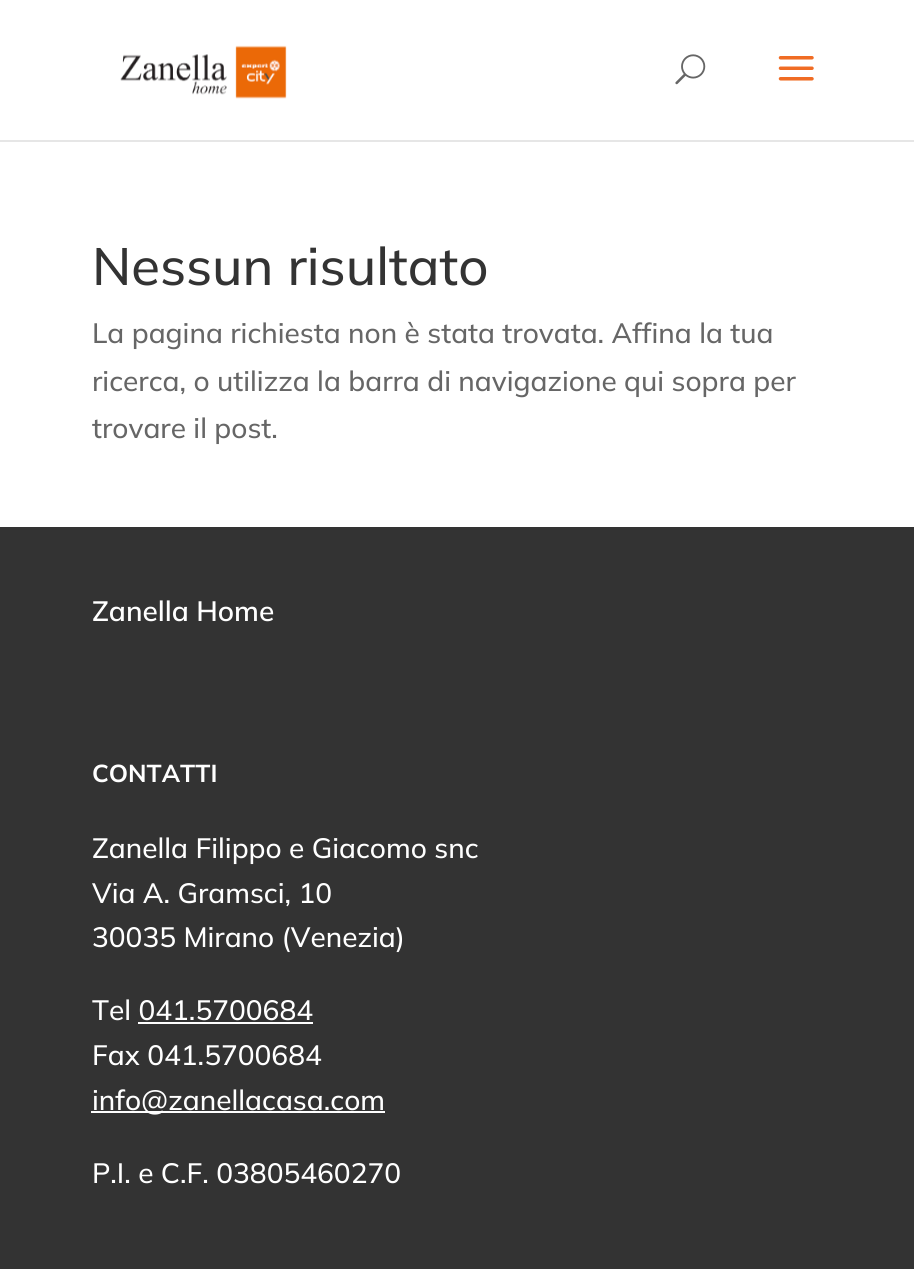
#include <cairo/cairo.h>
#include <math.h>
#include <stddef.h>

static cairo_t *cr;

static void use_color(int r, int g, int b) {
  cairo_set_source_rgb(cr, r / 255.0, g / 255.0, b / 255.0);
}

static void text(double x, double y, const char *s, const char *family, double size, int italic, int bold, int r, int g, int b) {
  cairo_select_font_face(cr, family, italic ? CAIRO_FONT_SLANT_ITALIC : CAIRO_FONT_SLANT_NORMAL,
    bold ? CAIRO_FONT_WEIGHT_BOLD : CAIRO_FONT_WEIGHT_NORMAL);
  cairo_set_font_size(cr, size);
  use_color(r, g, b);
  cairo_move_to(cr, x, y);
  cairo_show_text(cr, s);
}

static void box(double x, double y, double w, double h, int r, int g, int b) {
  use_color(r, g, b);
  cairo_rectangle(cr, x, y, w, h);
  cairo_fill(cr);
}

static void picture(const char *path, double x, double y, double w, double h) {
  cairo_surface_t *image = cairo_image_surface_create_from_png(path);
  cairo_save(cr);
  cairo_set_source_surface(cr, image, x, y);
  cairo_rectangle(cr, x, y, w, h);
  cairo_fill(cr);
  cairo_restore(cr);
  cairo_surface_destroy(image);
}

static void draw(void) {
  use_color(255, 255, 255);
  cairo_paint(cr);
  box(0, 140, 914, 2, 230, 230, 230);
  picture("img_01.png", 120, 45, 167, 54);
  picture("img_02.png", 675, 54, 31, 31);
  picture("img_03.png", 778, 56, 36, 25);
  box(0, 527, 914, 742, 51, 51, 51);
  box(138, 1022, 175, 2, 255, 255, 255);
  box(91, 1111, 294, 2, 255, 255, 255);
  text(92, 285, "Nessun risultato", "Mulish Medium", 52.5, 0, 0, 51, 51, 51);
  text(92, 343, "La pagina richiesta non è stata trovata. Affina la tua", "Mulish Medium", 28, 0, 0, 102, 102, 102);
  text(92, 391, "ricerca, o utilizza la barra di navigazione qui sopra per", "Mulish Medium", 28, 0, 0, 102, 102, 102);
  text(92, 438, "trovare il post.", "Mulish Medium", 28, 0, 0, 102, 102, 102);
  text(92, 621, "Zanella Home", "Mulish SemiBold", 28, 0, 0, 255, 255, 255);
  text(92, 782, "CONTATTI", "Mulish", 24.5, 0, 1, 255, 255, 255);
  text(92, 858, "Zanella Filippo e Giacomo snc", "Mulish Medium", 28, 0, 0, 255, 255, 255);
  text(92, 903, "Via A. Gramsci, 10", "Mulish Medium", 28, 0, 0, 255, 255, 255);
  text(92, 947, "30035 Mirano (Venezia)", "Mulish Medium", 28, 0, 0, 255, 255, 255);
  text(92, 1020, "Tel 041.5700684", "Mulish Medium", 28, 0, 0, 255, 255, 255);
  text(92, 1065, "Fax 041.5700684", "Mulish Medium", 28, 0, 0, 255, 255, 255);
  text(92, 1110, "info@zanellacasa.com", "Mulish Medium", 28, 0, 0, 255, 255, 255);
  text(92, 1183, "P.I. e C.F. 03805460270", "Mulish Medium", 28, 0, 0, 255, 255, 255);
}

int main(void) {
  cairo_surface_t *surface = cairo_image_surface_create(CAIRO_FORMAT_RGB24, 914, 1269);
  cr = cairo_create(surface);
  cairo_font_options_t *options = cairo_font_options_create();
  cairo_font_options_set_hint_metrics(options, CAIRO_HINT_METRICS_OFF);
  cairo_font_options_set_hint_style(options, CAIRO_HINT_STYLE_NONE);
  cairo_set_font_options(cr, options);
  cairo_set_miter_limit(cr, 4);
  draw();
  cairo_surface_write_to_png(surface, "out.png");
  cairo_font_options_destroy(options);
  cairo_destroy(cr);
  cairo_surface_destroy(surface);
  return 0;
}
